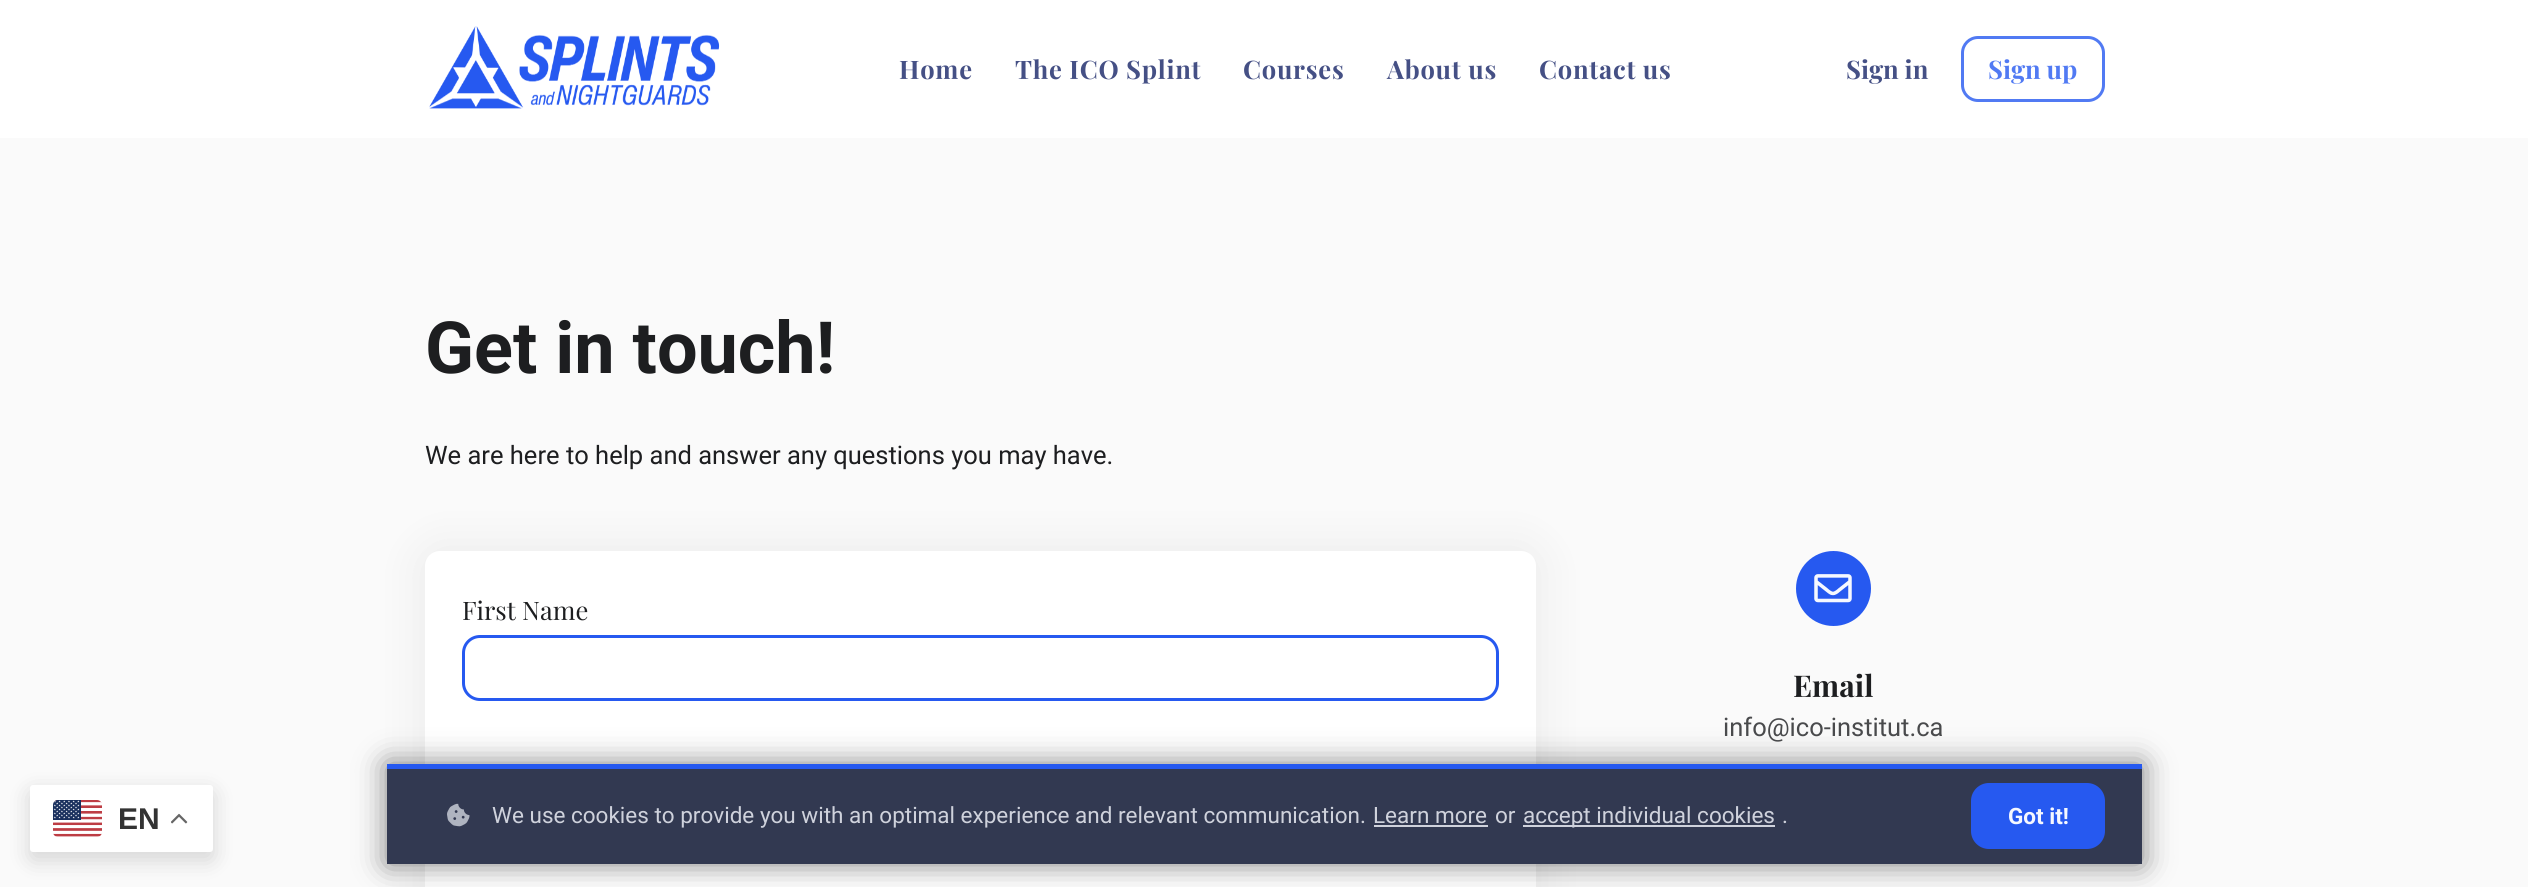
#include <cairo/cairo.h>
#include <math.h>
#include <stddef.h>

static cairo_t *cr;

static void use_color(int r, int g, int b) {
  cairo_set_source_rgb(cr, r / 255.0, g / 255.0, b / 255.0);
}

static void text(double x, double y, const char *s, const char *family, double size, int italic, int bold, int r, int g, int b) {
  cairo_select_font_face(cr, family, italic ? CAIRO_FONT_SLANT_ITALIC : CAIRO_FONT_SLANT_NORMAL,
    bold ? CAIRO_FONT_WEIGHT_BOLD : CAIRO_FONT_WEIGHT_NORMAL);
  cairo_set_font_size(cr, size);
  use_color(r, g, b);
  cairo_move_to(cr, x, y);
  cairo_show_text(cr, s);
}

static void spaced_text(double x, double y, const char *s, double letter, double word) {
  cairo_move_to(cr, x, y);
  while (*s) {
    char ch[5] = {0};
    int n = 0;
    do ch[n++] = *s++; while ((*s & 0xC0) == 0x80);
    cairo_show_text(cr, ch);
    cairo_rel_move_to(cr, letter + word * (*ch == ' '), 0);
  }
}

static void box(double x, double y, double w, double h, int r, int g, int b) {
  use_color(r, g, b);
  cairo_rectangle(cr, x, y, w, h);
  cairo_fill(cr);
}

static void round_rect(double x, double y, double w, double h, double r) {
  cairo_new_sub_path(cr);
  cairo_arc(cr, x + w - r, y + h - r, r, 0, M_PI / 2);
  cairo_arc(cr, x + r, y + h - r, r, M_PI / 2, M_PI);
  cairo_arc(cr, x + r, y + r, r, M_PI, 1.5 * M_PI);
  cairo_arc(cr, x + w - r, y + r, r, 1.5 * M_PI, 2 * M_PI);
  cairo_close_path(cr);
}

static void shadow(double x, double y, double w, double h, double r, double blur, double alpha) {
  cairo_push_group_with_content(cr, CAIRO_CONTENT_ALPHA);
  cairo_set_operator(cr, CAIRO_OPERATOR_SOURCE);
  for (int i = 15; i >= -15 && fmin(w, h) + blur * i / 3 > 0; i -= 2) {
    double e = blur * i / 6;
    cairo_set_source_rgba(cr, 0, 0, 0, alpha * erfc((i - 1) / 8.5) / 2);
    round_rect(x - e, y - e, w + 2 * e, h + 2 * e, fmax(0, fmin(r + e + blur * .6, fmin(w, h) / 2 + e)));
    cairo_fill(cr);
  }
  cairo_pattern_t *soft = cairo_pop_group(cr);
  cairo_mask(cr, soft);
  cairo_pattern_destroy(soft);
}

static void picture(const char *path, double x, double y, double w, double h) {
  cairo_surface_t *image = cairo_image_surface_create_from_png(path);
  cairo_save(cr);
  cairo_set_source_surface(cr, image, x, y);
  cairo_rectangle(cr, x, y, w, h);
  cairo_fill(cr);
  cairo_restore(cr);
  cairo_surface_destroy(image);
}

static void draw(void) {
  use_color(255, 255, 255);
  cairo_paint(cr);
  picture("img_01.png", 429, 26, 291, 83);
  round_rect(1962.5, 37.5, 141, 63, 15.5);
  use_color(81, 122, 243);
  cairo_set_line_width(cr, 3);
  cairo_stroke(cr);
  box(0, 138, 2528, 749, 250, 250, 250);
  use_color(195, 195, 195);
  shadow(423, 549, 1115, 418, 17, 21, 0.3);
  use_color(255, 255, 255);
  cairo_new_path(cr);
  cairo_move_to(cr, 440, 551);
  cairo_line_to(cr, 1521, 551);
  cairo_curve_to(cr, 1529.5, 551, 1536, 557.5, 1536, 566);
  cairo_line_to(cr, 1536, 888);
  cairo_line_to(cr, 425, 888);
  cairo_line_to(cr, 425, 566);
  cairo_curve_to(cr, 425, 557.5, 431.5, 551, 440, 551);
  cairo_close_path(cr);
  cairo_fill(cr);
  round_rect(463.5, 636.5, 1034, 63, 16.5);
  use_color(38, 89, 240);
  cairo_stroke(cr);
  cairo_arc(cr, 1833.5, 588.5, 37.5, 0, 2 * M_PI);
  cairo_fill(cr);
  picture("img_02.png", 1814, 574, 38, 29);
  use_color(0, 0, 0);
  shadow(30, 792, 183, 68, 3, 11, 0.15);
  use_color(255, 255, 255);
  round_rect(30, 785, 183, 67, 3);
  cairo_fill(cr);
  picture("img_03.png", 53, 800, 49, 37);
  picture("img_04.png", 171, 813, 17, 11);
  use_color(0, 0, 0);
  shadow(387, 764, 1755, 100, 0, 15, 0.5);
  box(387, 769, 1755, 95, 50, 57, 81);
  box(387, 764, 1755, 5, 38, 89, 240);
  picture("img_05.png", 447, 803, 23, 24);
  box(1374, 825, 114, 2, 207, 210, 220);
  box(1523, 825, 252, 2, 207, 210, 220);
  use_color(38, 89, 240);
  round_rect(1971, 783, 134, 66, 18);
  cairo_fill(cr);
  cairo_select_font_face(cr, "Playfair Display", CAIRO_FONT_SLANT_NORMAL, CAIRO_FONT_WEIGHT_BOLD);
  cairo_set_font_size(cr, 25.5);
  use_color(69, 80, 133);
  spaced_text(899, 79, "Home", 0.75, 0);
  spaced_text(1015, 79, "The ICO Splint", 0.75, 0);
  spaced_text(1243, 79, "Courses", 0.75, 0);
  spaced_text(1387, 79, "About us", 0.75, 0);
  spaced_text(1539, 79, "Contact us", 0.75, 0);
  text(1846, 79, "Sign in", "Playfair Display", 25.5, 0, 1, 69, 80, 133);
  text(1988, 79, "Sign up", "Playfair Display", 25.5, 0, 1, 81, 122, 243);
  text(425, 373, "Get in touch!", "Roboto", 72, 0, 1, 29, 30, 32);
  text(425, 464, "We are here to help and answer any questions you may have.", "Roboto", 25.5, 0, 0, 29, 30, 32);
  text(462, 620, "First Name", "Playfair Display", 25.5, 0, 0, 29, 30, 32);
  text(1793, 697, "Email", "Playfair Display", 30, 0, 1, 29, 30, 32);
  text(1723, 736, "info@ico-institut.ca", "Roboto", 25.5, 0, 0, 73, 74, 76);
  text(118, 829, "EN", "Liberation Sans", 30, 0, 1, 51, 51, 51);
  text(492, 823, "We use cookies to provide you with an optimal experience and relevant communication.", "Roboto", 22.5, 0, 0, 207, 210, 220);
  text(1373, 823, "Learn more", "Roboto", 22.5, 0, 0, 207, 210, 220);
  text(1495, 823, "or", "Roboto", 22.5, 0, 0, 207, 210, 220);
  text(1523, 823, "accept individual cookies", "Roboto", 22.5, 0, 0, 207, 210, 220);
  text(1782, 823, ".", "Roboto", 22.5, 0, 0, 207, 210, 220);
  text(2008, 824, "Got it!", "Roboto", 22.5, 0, 1, 246, 248, 255);
}

int main(void) {
  cairo_surface_t *surface = cairo_image_surface_create(CAIRO_FORMAT_RGB24, 2528, 887);
  cr = cairo_create(surface);
  cairo_font_options_t *options = cairo_font_options_create();
  cairo_font_options_set_hint_metrics(options, CAIRO_HINT_METRICS_OFF);
  cairo_font_options_set_hint_style(options, CAIRO_HINT_STYLE_NONE);
  cairo_set_font_options(cr, options);
  cairo_set_miter_limit(cr, 4);
  draw();
  cairo_surface_write_to_png(surface, "out.png");
  cairo_font_options_destroy(options);
  cairo_destroy(cr);
  cairo_surface_destroy(surface);
  return 0;
}
